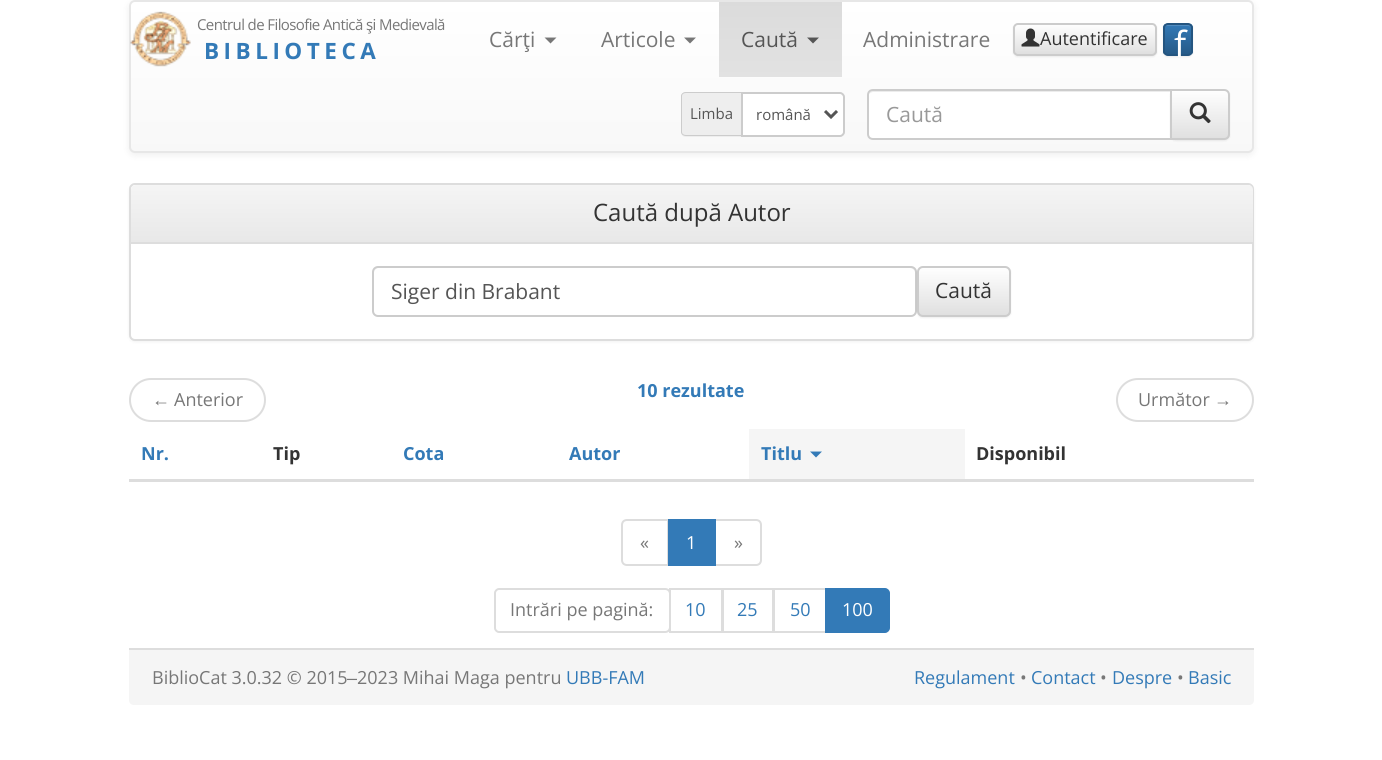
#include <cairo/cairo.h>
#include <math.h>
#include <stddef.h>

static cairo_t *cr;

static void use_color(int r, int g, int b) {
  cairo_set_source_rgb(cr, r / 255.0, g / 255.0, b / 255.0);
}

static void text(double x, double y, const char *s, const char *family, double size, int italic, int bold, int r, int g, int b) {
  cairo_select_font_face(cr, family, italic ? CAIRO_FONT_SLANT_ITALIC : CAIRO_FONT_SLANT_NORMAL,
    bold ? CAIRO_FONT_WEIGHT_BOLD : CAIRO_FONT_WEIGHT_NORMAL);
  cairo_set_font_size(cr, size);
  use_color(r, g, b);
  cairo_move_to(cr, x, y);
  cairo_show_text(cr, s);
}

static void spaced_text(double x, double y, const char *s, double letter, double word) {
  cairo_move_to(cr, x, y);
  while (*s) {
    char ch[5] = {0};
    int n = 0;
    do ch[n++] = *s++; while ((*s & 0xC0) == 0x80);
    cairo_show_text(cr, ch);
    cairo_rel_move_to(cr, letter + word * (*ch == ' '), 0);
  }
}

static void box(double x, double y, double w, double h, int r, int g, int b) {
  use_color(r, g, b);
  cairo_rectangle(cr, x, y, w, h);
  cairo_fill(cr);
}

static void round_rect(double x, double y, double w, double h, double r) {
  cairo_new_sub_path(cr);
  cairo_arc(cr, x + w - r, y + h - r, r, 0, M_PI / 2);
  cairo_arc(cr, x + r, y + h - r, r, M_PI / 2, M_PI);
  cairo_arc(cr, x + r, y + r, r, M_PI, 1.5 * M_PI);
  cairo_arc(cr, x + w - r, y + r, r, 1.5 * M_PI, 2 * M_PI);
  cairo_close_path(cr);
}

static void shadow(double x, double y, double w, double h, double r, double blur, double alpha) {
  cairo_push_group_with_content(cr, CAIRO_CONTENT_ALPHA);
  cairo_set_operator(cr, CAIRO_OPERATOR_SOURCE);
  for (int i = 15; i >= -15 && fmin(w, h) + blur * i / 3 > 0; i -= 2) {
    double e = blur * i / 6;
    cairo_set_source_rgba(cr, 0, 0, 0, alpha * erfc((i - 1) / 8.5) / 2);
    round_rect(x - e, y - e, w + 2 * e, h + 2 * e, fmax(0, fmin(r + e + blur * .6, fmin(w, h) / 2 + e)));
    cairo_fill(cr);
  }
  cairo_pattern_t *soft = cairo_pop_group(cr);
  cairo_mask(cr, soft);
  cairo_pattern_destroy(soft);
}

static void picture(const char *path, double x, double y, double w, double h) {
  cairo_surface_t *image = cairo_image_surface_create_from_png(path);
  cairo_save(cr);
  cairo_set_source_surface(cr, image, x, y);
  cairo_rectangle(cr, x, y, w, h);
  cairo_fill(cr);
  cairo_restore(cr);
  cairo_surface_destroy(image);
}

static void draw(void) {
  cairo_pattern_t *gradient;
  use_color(255, 255, 255);
  cairo_paint(cr);
  use_color(0, 0, 0);
  shadow(129, 2, 1125, 153, 6, 4, 0.07);
  cairo_save(cr);
  round_rect(129, 0, 1125, 153, 6);
  cairo_clip(cr);
  gradient = cairo_pattern_create_linear(692, 1.5, 692, 152);
  cairo_pattern_add_color_stop_rgba(gradient, 0, 1, 1, 1, 1);
  cairo_pattern_add_color_stop_rgba(gradient, 1, 0.973, 0.973, 0.973, 1);
  cairo_set_source(cr, gradient);
  cairo_pattern_destroy(gradient);
  cairo_rectangle(cr, 129, 2, 1125, 150);
  cairo_fill(cr);
  cairo_restore(cr);
  round_rect(130, 1, 1123, 151, 5);
  use_color(231, 231, 231);
  cairo_stroke(cr);
  picture("img_01.png", 130, 11, 61, 56);
  use_color(119, 119, 119);
  cairo_new_path(cr);
  cairo_move_to(cr, 544.5, 37.5);
  cairo_line_to(cr, 556.5, 37.5);
  cairo_line_to(cr, 550.5, 43.5);
  cairo_close_path(cr);
  cairo_fill(cr);
  cairo_new_path(cr);
  cairo_move_to(cr, 684, 37.5);
  cairo_line_to(cr, 696, 37.5);
  cairo_line_to(cr, 690, 43.5);
  cairo_close_path(cr);
  cairo_fill(cr);
  gradient = cairo_pattern_create_linear(780, 1.5, 780, 77);
  cairo_pattern_add_color_stop_rgba(gradient, 0, 0.859, 0.859, 0.859, 1);
  cairo_pattern_add_color_stop_rgba(gradient, 1, 0.886, 0.886, 0.886, 1);
  cairo_set_source(cr, gradient);
  cairo_pattern_destroy(gradient);
  cairo_rectangle(cr, 719, 2, 123, 75);
  cairo_fill(cr);
  use_color(85, 85, 85);
  cairo_new_path(cr);
  cairo_move_to(cr, 807, 37.5);
  cairo_line_to(cr, 819, 37.5);
  cairo_line_to(cr, 813, 43.5);
  cairo_close_path(cr);
  cairo_fill(cr);
  use_color(0, 0, 0);
  shadow(1013, 24, 144, 33, 5, 1, 0.07);
  cairo_save(cr);
  round_rect(1013, 23, 144, 33, 5);
  cairo_clip(cr);
  gradient = cairo_pattern_create_linear(1085, 24, 1085, 54);
  cairo_pattern_add_color_stop_rgba(gradient, 0, 1, 1, 1, 1);
  cairo_pattern_add_color_stop_rgba(gradient, 1, 0.878, 0.878, 0.878, 1);
  cairo_set_source(cr, gradient);
  cairo_pattern_destroy(gradient);
  cairo_rectangle(cr, 1013, 24, 144, 30);
  cairo_fill(cr);
  cairo_restore(cr);
  round_rect(1014, 24, 142, 31, 4);
  use_color(204, 204, 204);
  cairo_stroke(cr);
  picture("img_02.png", 1021, 28, 19, 19);
  use_color(0, 0, 0);
  shadow(1163, 24, 30, 33, 5, 1, 0.07);
  cairo_save(cr);
  round_rect(1163, 23, 30, 33, 5);
  cairo_clip(cr);
  gradient = cairo_pattern_create_linear(1178, 24, 1178, 54);
  cairo_pattern_add_color_stop_rgba(gradient, 0, 0.2, 0.478, 0.718, 1);
  cairo_pattern_add_color_stop_rgba(gradient, 1, 0.149, 0.353, 0.533, 1);
  cairo_set_source(cr, gradient);
  cairo_pattern_destroy(gradient);
  cairo_rectangle(cr, 1163, 24, 30, 30);
  cairo_fill(cr);
  cairo_restore(cr);
  cairo_set_source_rgba(cr, 1, 1, 1, 0.15);
  cairo_new_path(cr);
  cairo_move_to(cr, 1167, 26);
  cairo_line_to(cr, 1188, 26);
  cairo_curve_to(cr, 1190, 26, 1191, 27, 1191, 28);
  cairo_curve_to(cr, 1191, 23.5, 1188.5, 24, 1184.5, 24);
  cairo_line_to(cr, 1170.5, 24);
  cairo_curve_to(cr, 1166.5, 24, 1164, 23.5, 1164, 28);
  cairo_curve_to(cr, 1164, 27, 1165, 26, 1167, 26);
  cairo_close_path(cr);
  cairo_fill(cr);
  round_rect(1164, 24, 28, 31, 4);
  use_color(36, 85, 128);
  cairo_stroke(cr);
  use_color(238, 238, 238);
  cairo_new_path(cr);
  cairo_move_to(cr, 686, 92);
  cairo_line_to(cr, 741, 92);
  cairo_line_to(cr, 741, 137);
  cairo_line_to(cr, 686, 137);
  cairo_curve_to(cr, 683, 137, 681, 135, 681, 132);
  cairo_line_to(cr, 681, 97);
  cairo_curve_to(cr, 681, 94, 683, 92, 686, 92);
  cairo_close_path(cr);
  cairo_fill(cr);
  use_color(204, 204, 204);
  cairo_set_fill_rule(cr, CAIRO_FILL_RULE_EVEN_ODD);
  cairo_new_path(cr);
  cairo_move_to(cr, 686, 92);
  cairo_line_to(cr, 741, 92);
  cairo_line_to(cr, 741, 136);
  cairo_line_to(cr, 686, 136);
  cairo_curve_to(cr, 683, 136, 681, 134, 681, 132);
  cairo_line_to(cr, 681, 96);
  cairo_curve_to(cr, 681, 94, 683, 92, 686, 92);
  cairo_close_path(cr);
  cairo_move_to(cr, 686, 93);
  cairo_line_to(cr, 741, 93);
  cairo_line_to(cr, 741, 135);
  cairo_line_to(cr, 686, 135);
  cairo_curve_to(cr, 684, 135, 682, 134, 682, 132);
  cairo_line_to(cr, 682, 96);
  cairo_curve_to(cr, 682, 94, 684, 93, 686, 93);
  cairo_close_path(cr);
  cairo_fill(cr);
  use_color(255, 255, 255);
  cairo_new_path(cr);
  cairo_move_to(cr, 742, 93);
  cairo_line_to(cr, 840, 93);
  cairo_curve_to(cr, 842, 93, 844, 95, 844, 97);
  cairo_line_to(cr, 844, 132);
  cairo_curve_to(cr, 844, 134, 842, 136, 840, 136);
  cairo_line_to(cr, 742, 136);
  cairo_close_path(cr);
  cairo_fill_preserve(cr);
  use_color(204, 204, 204);
  cairo_stroke(cr);
  cairo_new_path(cr);
  cairo_move_to(cr, 825, 111);
  cairo_line_to(cr, 831, 117);
  cairo_line_to(cr, 837, 111);
  use_color(85, 85, 85);
  cairo_set_line_width(cr, 3);
  cairo_stroke(cr);
  use_color(255, 255, 255);
  cairo_new_path(cr);
  cairo_move_to(cr, 873, 89);
  cairo_line_to(cr, 1172, 89);
  cairo_line_to(cr, 1172, 140);
  cairo_line_to(cr, 873, 140);
  cairo_curve_to(cr, 869.5, 140, 867, 137.5, 867, 134);
  cairo_line_to(cr, 867, 95);
  cairo_curve_to(cr, 867, 91.5, 869.5, 89, 873, 89);
  cairo_close_path(cr);
  cairo_fill(cr);
  use_color(236, 236, 236);
  cairo_set_fill_rule(cr, CAIRO_FILL_RULE_WINDING);
  cairo_new_path(cr);
  cairo_move_to(cr, 873, 92);
  cairo_line_to(cr, 1170, 92);
  cairo_line_to(cr, 1170, 90);
  cairo_line_to(cr, 874, 90);
  cairo_curve_to(cr, 872, 90, 870, 92, 869, 94);
  cairo_curve_to(cr, 870, 93, 872, 92, 873, 92);
  cairo_close_path(cr);
  cairo_fill(cr);
  cairo_new_path(cr);
  cairo_move_to(cr, 873, 90);
  cairo_line_to(cr, 1171, 90);
  cairo_line_to(cr, 1171, 139);
  cairo_line_to(cr, 873, 139);
  cairo_curve_to(cr, 870, 139, 868, 137, 868, 134);
  cairo_line_to(cr, 868, 95);
  cairo_curve_to(cr, 868, 92, 870, 90, 873, 90);
  cairo_close_path(cr);
  use_color(204, 204, 204);
  cairo_set_line_width(cr, 2);
  cairo_stroke(cr);
  use_color(0, 0, 0);
  shadow(1170, 90, 60, 51, 6, 1, 0.07);
  cairo_save(cr);
  cairo_new_path(cr);
  cairo_move_to(cr, 1170, 89);
  cairo_line_to(cr, 1224, 89);
  cairo_curve_to(cr, 1227.5, 89, 1230, 91.5, 1230, 95);
  cairo_line_to(cr, 1230, 134);
  cairo_curve_to(cr, 1230, 137.5, 1227.5, 140, 1224, 140);
  cairo_line_to(cr, 1170, 140);
  cairo_close_path(cr);
  cairo_clip(cr);
  gradient = cairo_pattern_create_linear(1200, 90, 1200, 138);
  cairo_pattern_add_color_stop_rgba(gradient, 0, 1, 1, 1, 1);
  cairo_pattern_add_color_stop_rgba(gradient, 1, 0.878, 0.878, 0.878, 1);
  cairo_set_source(cr, gradient);
  cairo_pattern_destroy(gradient);
  cairo_rectangle(cr, 1172, 90, 58, 48);
  cairo_fill(cr);
  cairo_restore(cr);
  cairo_set_source_rgba(cr, 1, 1, 1, 0.15);
  cairo_new_path(cr);
  cairo_move_to(cr, 1172, 92);
  cairo_line_to(cr, 1215, 92);
  cairo_curve_to(cr, 1231, 92, 1228, 92, 1228, 109);
  cairo_line_to(cr, 1228, 136);
  cairo_curve_to(cr, 1229, 135, 1229, 134, 1229, 133);
  cairo_line_to(cr, 1229, 95);
  cairo_curve_to(cr, 1229, 92, 1227, 90, 1224, 90);
  cairo_line_to(cr, 1172, 90);
  cairo_close_path(cr);
  cairo_fill(cr);
  cairo_new_path(cr);
  cairo_move_to(cr, 1171, 90);
  cairo_line_to(cr, 1224, 90);
  cairo_curve_to(cr, 1227, 90, 1229, 92, 1229, 95);
  cairo_line_to(cr, 1229, 134);
  cairo_curve_to(cr, 1229, 137, 1227, 139, 1224, 139);
  cairo_line_to(cr, 1171, 139);
  cairo_close_path(cr);
  use_color(204, 204, 204);
  cairo_stroke(cr);
  picture("img_03.png", 1189, 102, 22, 22);
  use_color(0, 0, 0);
  shadow(129, 185, 1125, 157, 6, 1.5, 0.05);
  use_color(255, 255, 255);
  round_rect(130, 184, 1123, 156, 5);
  cairo_fill_preserve(cr);
  use_color(221, 221, 221);
  cairo_stroke(cr);
  gradient = cairo_pattern_create_linear(692, 184, 692, 242);
  cairo_pattern_add_color_stop_rgba(gradient, 0, 0.961, 0.961, 0.961, 1);
  cairo_pattern_add_color_stop_rgba(gradient, 1, 0.91, 0.91, 0.91, 1);
  cairo_set_source(cr, gradient);
  cairo_pattern_destroy(gradient);
  cairo_new_path(cr);
  cairo_move_to(cr, 136, 185);
  cairo_line_to(cr, 1248, 185);
  cairo_curve_to(cr, 1251, 185, 1253, 187, 1253, 190);
  cairo_line_to(cr, 1253, 242);
  cairo_line_to(cr, 131, 242);
  cairo_line_to(cr, 131, 190);
  cairo_curve_to(cr, 131, 187, 133, 185, 136, 185);
  cairo_close_path(cr);
  cairo_fill(cr);
  box(131, 242, 1122, 2, 221, 221, 221);
  use_color(236, 236, 236);
  cairo_new_path(cr);
  cairo_move_to(cr, 378, 268);
  cairo_line_to(cr, 910, 268);
  cairo_curve_to(cr, 913, 268, 915, 271, 915, 273);
  cairo_curve_to(cr, 915, 270, 913, 267, 910, 267);
  cairo_line_to(cr, 379, 267);
  cairo_curve_to(cr, 376, 267, 374, 270, 374, 273);
  cairo_curve_to(cr, 374, 271, 376, 268, 378, 268);
  cairo_close_path(cr);
  cairo_fill(cr);
  round_rect(373, 267, 543, 49, 5);
  use_color(204, 204, 204);
  cairo_stroke(cr);
  use_color(0, 0, 0);
  shadow(917, 267, 94, 51, 6, 1, 0.07);
  cairo_save(cr);
  round_rect(917, 266, 94, 51, 6);
  cairo_clip(cr);
  gradient = cairo_pattern_create_linear(964, 267, 964, 315);
  cairo_pattern_add_color_stop_rgba(gradient, 0, 1, 1, 1, 1);
  cairo_pattern_add_color_stop_rgba(gradient, 1, 0.878, 0.878, 0.878, 1);
  cairo_set_source(cr, gradient);
  cairo_pattern_destroy(gradient);
  cairo_rectangle(cr, 917, 267, 94, 48);
  cairo_fill(cr);
  cairo_restore(cr);
  round_rect(918, 267, 92, 49, 5);
  use_color(204, 204, 204);
  cairo_stroke(cr);
  round_rect(130, 379, 135, 42, 21);
  use_color(221, 221, 221);
  cairo_stroke(cr);
  round_rect(1117, 379, 136, 42, 21);
  cairo_stroke(cr);
  box(749, 429, 216, 50, 245, 245, 245);
  use_color(51, 122, 183);
  cairo_new_path(cr);
  cairo_move_to(cr, 810, 451.5);
  cairo_line_to(cr, 822, 451.5);
  cairo_line_to(cr, 816, 457.5);
  cairo_close_path(cr);
  cairo_fill(cr);
  box(129, 479, 1125, 3, 221, 221, 221);
  cairo_new_path(cr);
  cairo_move_to(cr, 627, 520);
  cairo_line_to(cr, 668, 520);
  cairo_line_to(cr, 668, 565);
  cairo_line_to(cr, 627, 565);
  cairo_curve_to(cr, 624, 565, 622, 563, 622, 560);
  cairo_line_to(cr, 622, 525);
  cairo_curve_to(cr, 622, 522, 624, 520, 627, 520);
  cairo_close_path(cr);
  cairo_stroke(cr);
  cairo_new_path(cr);
  cairo_move_to(cr, 715, 520);
  cairo_line_to(cr, 756, 520);
  cairo_curve_to(cr, 759, 520, 761, 522, 761, 525);
  cairo_line_to(cr, 761, 560);
  cairo_curve_to(cr, 761, 563, 759, 565, 756, 565);
  cairo_line_to(cr, 715, 565);
  cairo_close_path(cr);
  cairo_stroke(cr);
  box(668, 519, 48, 47, 51, 122, 183);
  cairo_new_path(cr);
  cairo_move_to(cr, 499, 589);
  cairo_line_to(cr, 665, 589);
  cairo_curve_to(cr, 668, 589, 670, 591, 670, 594);
  cairo_line_to(cr, 670, 627);
  cairo_curve_to(cr, 670, 630, 668, 632, 665, 632);
  cairo_line_to(cr, 499, 632);
  cairo_curve_to(cr, 497, 632, 495, 630, 495, 628);
  cairo_line_to(cr, 495, 593);
  cairo_curve_to(cr, 495, 591, 497, 589, 499, 589);
  cairo_close_path(cr);
  use_color(221, 221, 221);
  cairo_stroke(cr);
  cairo_rectangle(cr, 670, 589, 52, 43);
  cairo_stroke(cr);
  cairo_rectangle(cr, 723, 589, 50, 43);
  cairo_stroke(cr);
  cairo_rectangle(cr, 774, 589, 52, 43);
  cairo_stroke(cr);
  use_color(51, 122, 183);
  cairo_new_path(cr);
  cairo_move_to(cr, 826, 589);
  cairo_line_to(cr, 885, 589);
  cairo_curve_to(cr, 887, 589, 889, 591, 889, 593);
  cairo_line_to(cr, 889, 628);
  cairo_curve_to(cr, 889, 630, 887, 632, 885, 632);
  cairo_line_to(cr, 826, 632);
  cairo_close_path(cr);
  cairo_fill_preserve(cr);
  cairo_stroke(cr);
  use_color(245, 245, 245);
  cairo_new_path(cr);
  cairo_move_to(cr, 129, 648);
  cairo_line_to(cr, 1254, 648);
  cairo_line_to(cr, 1254, 700);
  cairo_curve_to(cr, 1254, 703, 1252, 705, 1249, 705);
  cairo_line_to(cr, 134, 705);
  cairo_curve_to(cr, 131, 705, 129, 703, 129, 700);
  cairo_close_path(cr);
  cairo_fill(cr);
  box(129, 648, 1125, 2, 221, 221, 221);
  cairo_select_font_face(cr, "Open Sans", CAIRO_FONT_SLANT_NORMAL, CAIRO_FONT_WEIGHT_NORMAL);
  cairo_set_font_size(cr, 15);
  use_color(119, 119, 119);
  spaced_text(197, 30, "Centrul de Filosofie Antică şi Medievală", -0.6, 0);
  cairo_select_font_face(cr, "Open Sans", CAIRO_FONT_SLANT_NORMAL, CAIRO_FONT_WEIGHT_BOLD);
  cairo_set_font_size(cr, 22.5);
  use_color(51, 122, 183);
  spaced_text(204, 59, "BIBLIOTECA", 4.5, 0);
  text(489, 47, "Cărţi", "Open Sans", 21, 0, 0, 119, 119, 119);
  text(601, 47, "Articole", "Open Sans", 21, 0, 0, 119, 119, 119);
  text(741, 47, "Caută", "Open Sans", 21, 0, 0, 85, 85, 85);
  text(863, 47, "Administrare", "Open Sans", 21, 0, 0, 119, 119, 119);
  text(1040, 45, "Autentificare", "Open Sans", 18, 0, 0, 51, 51, 51);
  text(1174, 57, "f", "Open Sans", 36, 0, 0, 255, 255, 255);
  text(690, 119, "Limba", "Open Sans", 15, 0, 0, 85, 85, 85);
  text(756, 120, "română", "Open Sans", 15, 0, 0, 85, 85, 85);
  text(886, 122, "Caută", "Open Sans", 21, 0, 0, 153, 153, 153);
  text(593, 221, "Caută după Autor", "Open Sans", 24, 0, 0, 51, 51, 51);
  text(391, 299, "Siger din Brabant", "Open Sans", 21, 0, 0, 85, 85, 85);
  text(935, 298, "Caută", "Open Sans", 21, 0, 0, 51, 51, 51);
  text(637, 397, "10 rezultate", "Open Sans", 18, 0, 1, 51, 122, 183);
  text(152, 406, "←", "Liberation Sans", 18, 0, 0, 119, 119, 119);
  text(174, 406, "Anterior", "Open Sans", 18, 0, 0, 119, 119, 119);
  text(1138, 406, "Următor", "Open Sans", 18, 0, 0, 119, 119, 119);
  text(1214, 406, "→", "Liberation Sans", 18, 0, 0, 119, 119, 119);
  text(141, 460, "Nr.", "Open Sans", 18, 0, 1, 51, 122, 183);
  text(273, 460, "Tip", "Open Sans", 18, 0, 1, 51, 51, 51);
  text(403, 460, "Cota", "Open Sans", 18, 0, 1, 51, 122, 183);
  text(569, 460, "Autor", "Open Sans", 18, 0, 1, 51, 122, 183);
  text(761, 460, "Titlu", "Open Sans", 18, 0, 1, 51, 122, 183);
  text(976, 460, "Disponibil", "Open Sans", 18, 0, 1, 51, 51, 51);
  text(640, 549, "«", "Open Sans", 18, 0, 0, 119, 119, 119);
  text(686, 549, "1", "Open Sans", 18, 0, 0, 255, 255, 255);
  text(734, 549, "»", "Open Sans", 18, 0, 0, 119, 119, 119);
  text(510, 616, "Intrări pe pagină:", "Open Sans", 18, 0, 0, 119, 119, 119);
  text(685, 616, "10", "Open Sans", 18, 0, 0, 51, 122, 183);
  text(737, 616, "25", "Open Sans", 18, 0, 0, 51, 122, 183);
  text(790, 616, "50", "Open Sans", 18, 0, 0, 51, 122, 183);
  text(842, 616, "100", "Open Sans", 18, 0, 0, 255, 255, 255);
  text(152, 684, "BiblioCat 3.0.32 © 2015", "Open Sans", 18, 0, 0, 119, 119, 119);
  text(347, 684, "‒", "Liberation Sans", 18, 0, 0, 119, 119, 119);
  text(357, 684, "2023 Mihai Maga pentru", "Open Sans", 18, 0, 0, 119, 119, 119);
  text(566, 684, "UBB-FAM", "Open Sans", 18, 0, 0, 51, 122, 183);
  text(914, 684, "Regulament", "Open Sans", 18, 0, 0, 51, 122, 183);
  text(1020, 684, "•", "Open Sans", 18, 0, 0, 119, 119, 119);
  text(1031, 684, "Contact", "Open Sans", 18, 0, 0, 51, 122, 183);
  text(1100, 684, "•", "Open Sans", 18, 0, 0, 119, 119, 119);
  text(1112, 684, "Despre", "Open Sans", 18, 0, 0, 51, 122, 183);
  text(1177, 684, "•", "Open Sans", 18, 0, 0, 119, 119, 119);
  text(1188, 684, "Basic", "Open Sans", 18, 0, 0, 51, 122, 183);
}

int main(void) {
  cairo_surface_t *surface = cairo_image_surface_create(CAIRO_FORMAT_RGB24, 1382, 760);
  cr = cairo_create(surface);
  cairo_font_options_t *options = cairo_font_options_create();
  cairo_font_options_set_hint_metrics(options, CAIRO_HINT_METRICS_OFF);
  cairo_font_options_set_hint_style(options, CAIRO_HINT_STYLE_NONE);
  cairo_set_font_options(cr, options);
  cairo_set_miter_limit(cr, 4);
  draw();
  cairo_surface_write_to_png(surface, "out.png");
  cairo_font_options_destroy(options);
  cairo_destroy(cr);
  cairo_surface_destroy(surface);
  return 0;
}
